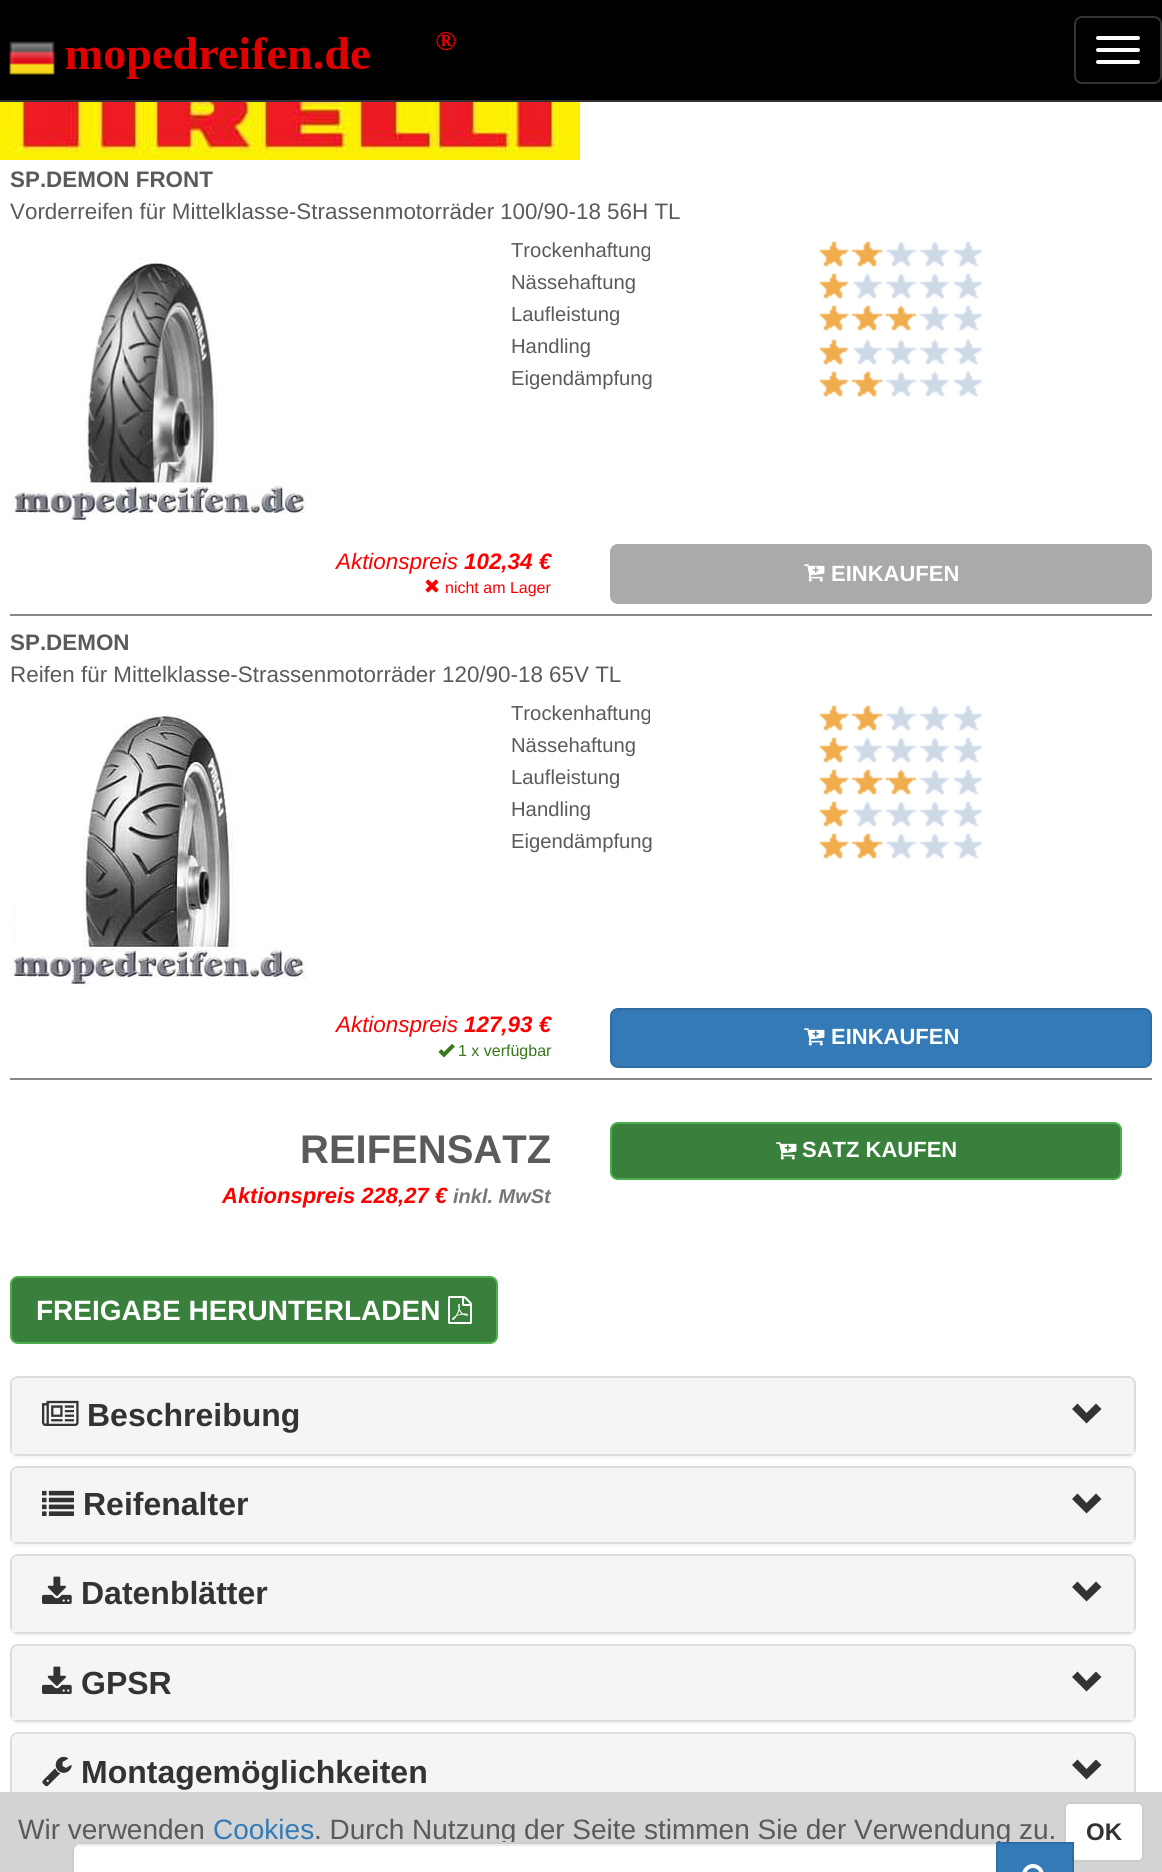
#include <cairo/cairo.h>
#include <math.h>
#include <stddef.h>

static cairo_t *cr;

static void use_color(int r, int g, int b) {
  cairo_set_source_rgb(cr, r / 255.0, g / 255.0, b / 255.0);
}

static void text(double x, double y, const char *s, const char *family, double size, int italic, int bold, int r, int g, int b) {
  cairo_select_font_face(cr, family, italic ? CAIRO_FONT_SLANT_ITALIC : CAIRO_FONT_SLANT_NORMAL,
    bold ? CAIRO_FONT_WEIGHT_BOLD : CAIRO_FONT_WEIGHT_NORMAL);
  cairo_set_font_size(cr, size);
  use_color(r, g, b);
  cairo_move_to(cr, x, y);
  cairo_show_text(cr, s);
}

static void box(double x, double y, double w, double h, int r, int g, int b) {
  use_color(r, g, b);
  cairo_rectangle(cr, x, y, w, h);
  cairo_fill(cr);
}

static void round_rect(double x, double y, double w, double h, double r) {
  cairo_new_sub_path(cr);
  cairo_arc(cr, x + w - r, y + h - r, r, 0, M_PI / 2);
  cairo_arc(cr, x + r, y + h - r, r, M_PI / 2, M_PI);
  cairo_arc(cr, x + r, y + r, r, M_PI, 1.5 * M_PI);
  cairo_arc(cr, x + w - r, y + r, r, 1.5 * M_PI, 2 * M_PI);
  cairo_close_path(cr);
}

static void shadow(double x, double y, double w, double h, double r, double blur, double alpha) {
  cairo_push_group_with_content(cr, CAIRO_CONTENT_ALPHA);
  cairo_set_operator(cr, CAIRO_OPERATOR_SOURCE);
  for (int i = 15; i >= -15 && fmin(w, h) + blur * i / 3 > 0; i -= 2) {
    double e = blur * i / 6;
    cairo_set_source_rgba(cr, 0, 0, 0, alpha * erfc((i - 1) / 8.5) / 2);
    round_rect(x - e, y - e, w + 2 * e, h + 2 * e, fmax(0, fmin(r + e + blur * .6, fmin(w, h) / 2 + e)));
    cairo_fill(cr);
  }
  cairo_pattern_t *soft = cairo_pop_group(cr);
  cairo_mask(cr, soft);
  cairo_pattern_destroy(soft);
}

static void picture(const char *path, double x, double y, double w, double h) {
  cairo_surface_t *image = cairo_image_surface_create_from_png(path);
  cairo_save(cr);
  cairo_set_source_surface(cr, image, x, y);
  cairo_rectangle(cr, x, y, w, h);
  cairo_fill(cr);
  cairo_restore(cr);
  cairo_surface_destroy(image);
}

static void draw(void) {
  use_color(255, 255, 255);
  cairo_paint(cr);
  box(0, 0, 1162, 100, 0, 0, 0);
  box(0, 100, 1162, 2, 51, 51, 51);
  picture("img_01.png", 9, 41, 46, 34);
  picture("img_02.png", 66, 32, 390, 47);
  round_rect(1075, 17, 86, 66, 7);
  cairo_stroke(cr);
  use_color(255, 255, 255);
  round_rect(1096, 36, 44, 4, 2);
  cairo_fill(cr);
  round_rect(1096, 48, 44, 4, 2);
  cairo_fill(cr);
  round_rect(1096, 60, 44, 4, 2);
  cairo_fill(cr);
  picture("img_03.png", 0, 102, 580, 58);
  picture("img_04.png", 10, 258, 296, 264);
  picture("img_05.png", 820, 241, 163, 26);
  picture("img_06.png", 820, 273, 163, 26);
  picture("img_07.png", 820, 305, 163, 26);
  picture("img_06.png", 820, 339, 163, 26);
  picture("img_05.png", 820, 371, 163, 26);
  picture("img_08.png", 425, 579, 14, 14);
  use_color(170, 170, 170);
  round_rect(611, 545, 540, 58, 7);
  cairo_fill_preserve(cr);
  cairo_stroke(cr);
  picture("img_09.png", 804, 564, 21, 18);
  box(10, 614, 1142, 2, 136, 136, 136);
  picture("img_10.png", 10, 714, 296, 272);
  picture("img_05.png", 820, 705, 163, 26);
  picture("img_06.png", 820, 737, 163, 26);
  picture("img_07.png", 820, 769, 163, 26);
  picture("img_06.png", 820, 801, 163, 26);
  picture("img_05.png", 820, 833, 163, 26);
  picture("img_11.png", 438, 1044, 17, 14);
  use_color(51, 122, 183);
  round_rect(611, 1009, 540, 58, 7);
  cairo_fill_preserve(cr);
  use_color(46, 109, 164);
  cairo_stroke(cr);
  picture("img_12.png", 804, 1028, 21, 18);
  box(10, 1078, 1142, 2, 136, 136, 136);
  use_color(56, 128, 59);
  round_rect(611, 1123, 510, 56, 7);
  cairo_fill_preserve(cr);
  use_color(76, 174, 76);
  cairo_stroke(cr);
  picture("img_13.png", 776, 1142, 21, 18);
  use_color(56, 128, 59);
  round_rect(11, 1277, 486, 66, 7);
  cairo_fill_preserve(cr);
  use_color(76, 174, 76);
  cairo_stroke(cr);
  picture("img_14.png", 448, 1296, 24, 28);
  use_color(0, 0, 0);
  shadow(10, 1378, 1126, 80, 8, 1, 0.05);
  round_rect(11, 1377, 1124, 78, 7);
  use_color(221, 221, 221);
  cairo_stroke(cr);
  use_color(245, 245, 245);
  cairo_new_path(cr);
  cairo_move_to(cr, 18, 1378);
  cairo_line_to(cr, 1128, 1378);
  cairo_curve_to(cr, 1131.5, 1378, 1134, 1380.5, 1134, 1384);
  cairo_line_to(cr, 1134, 1454);
  cairo_line_to(cr, 12, 1454);
  cairo_line_to(cr, 12, 1384);
  cairo_curve_to(cr, 12, 1380.5, 14.5, 1378, 18, 1378);
  cairo_close_path(cr);
  cairo_fill(cr);
  picture("img_15.png", 42, 1400, 37, 26);
  use_color(51, 51, 51);
  cairo_new_path(cr);
  cairo_move_to(cr, 1101.5, 1409);
  cairo_line_to(cr, 1086.5, 1423.5);
  cairo_line_to(cr, 1072, 1409);
  cairo_line_to(cr, 1077.5, 1403.5);
  cairo_line_to(cr, 1086.5, 1413);
  cairo_line_to(cr, 1096, 1403.5);
  cairo_close_path(cr);
  cairo_fill(cr);
  use_color(0, 0, 0);
  shadow(10, 1468, 1126, 78, 8, 1, 0.05);
  round_rect(11, 1467, 1124, 76, 7);
  use_color(221, 221, 221);
  cairo_stroke(cr);
  use_color(245, 245, 245);
  cairo_new_path(cr);
  cairo_move_to(cr, 18, 1468);
  cairo_line_to(cr, 1128, 1468);
  cairo_curve_to(cr, 1131.5, 1468, 1134, 1470.5, 1134, 1474);
  cairo_line_to(cr, 1134, 1542);
  cairo_line_to(cr, 12, 1542);
  cairo_line_to(cr, 12, 1474);
  cairo_curve_to(cr, 12, 1470.5, 14.5, 1468, 18, 1468);
  cairo_close_path(cr);
  cairo_fill(cr);
  picture("img_16.png", 42, 1490, 32, 26);
  use_color(51, 51, 51);
  cairo_new_path(cr);
  cairo_move_to(cr, 1101.5, 1499);
  cairo_line_to(cr, 1086.5, 1513.5);
  cairo_line_to(cr, 1072, 1499);
  cairo_line_to(cr, 1077.5, 1493.5);
  cairo_line_to(cr, 1086.5, 1503);
  cairo_line_to(cr, 1096, 1493.5);
  cairo_close_path(cr);
  cairo_fill(cr);
  use_color(0, 0, 0);
  shadow(10, 1556, 1126, 80, 8, 1, 0.05);
  round_rect(11, 1555, 1124, 78, 7);
  use_color(221, 221, 221);
  cairo_stroke(cr);
  use_color(245, 245, 245);
  cairo_new_path(cr);
  cairo_move_to(cr, 18, 1556);
  cairo_line_to(cr, 1128, 1556);
  cairo_curve_to(cr, 1131.5, 1556, 1134, 1558.5, 1134, 1562);
  cairo_line_to(cr, 1134, 1632);
  cairo_line_to(cr, 12, 1632);
  cairo_line_to(cr, 12, 1562);
  cairo_curve_to(cr, 12, 1558.5, 14.5, 1556, 18, 1556);
  cairo_close_path(cr);
  cairo_fill(cr);
  picture("img_17.png", 42, 1576, 30, 28);
  use_color(51, 51, 51);
  cairo_new_path(cr);
  cairo_move_to(cr, 1101.5, 1587);
  cairo_line_to(cr, 1086.5, 1601.5);
  cairo_line_to(cr, 1072, 1587);
  cairo_line_to(cr, 1077.5, 1581.5);
  cairo_line_to(cr, 1086.5, 1591);
  cairo_line_to(cr, 1096, 1581.5);
  cairo_close_path(cr);
  cairo_fill(cr);
  use_color(0, 0, 0);
  shadow(10, 1646, 1126, 78, 8, 1, 0.05);
  round_rect(11, 1645, 1124, 76, 7);
  use_color(221, 221, 221);
  cairo_stroke(cr);
  use_color(245, 245, 245);
  cairo_new_path(cr);
  cairo_move_to(cr, 18, 1646);
  cairo_line_to(cr, 1128, 1646);
  cairo_curve_to(cr, 1131.5, 1646, 1134, 1648.5, 1134, 1652);
  cairo_line_to(cr, 1134, 1720);
  cairo_line_to(cr, 12, 1720);
  cairo_line_to(cr, 12, 1652);
  cairo_curve_to(cr, 12, 1648.5, 14.5, 1646, 18, 1646);
  cairo_close_path(cr);
  cairo_fill(cr);
  picture("img_17.png", 42, 1666, 30, 28);
  use_color(51, 51, 51);
  cairo_new_path(cr);
  cairo_move_to(cr, 1101.5, 1677);
  cairo_line_to(cr, 1086.5, 1691.5);
  cairo_line_to(cr, 1072, 1677);
  cairo_line_to(cr, 1077.5, 1671.5);
  cairo_line_to(cr, 1086.5, 1681);
  cairo_line_to(cr, 1096, 1671.5);
  cairo_close_path(cr);
  cairo_fill(cr);
  round_rect(11, 1733, 1124, 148, 7);
  use_color(221, 221, 221);
  cairo_stroke(cr);
  use_color(245, 245, 245);
  cairo_new_path(cr);
  cairo_move_to(cr, 18, 1734);
  cairo_line_to(cr, 1128, 1734);
  cairo_curve_to(cr, 1131.5, 1734, 1134, 1736.5, 1134, 1740);
  cairo_line_to(cr, 1134, 1810);
  cairo_line_to(cr, 12, 1810);
  cairo_line_to(cr, 12, 1740);
  cairo_curve_to(cr, 12, 1736.5, 14.5, 1734, 18, 1734);
  cairo_close_path(cr);
  cairo_fill(cr);
  picture("img_18.png", 42, 1756, 30, 31);
  use_color(51, 51, 51);
  cairo_new_path(cr);
  cairo_move_to(cr, 1101.5, 1765);
  cairo_line_to(cr, 1086.5, 1779.5);
  cairo_line_to(cr, 1072, 1765);
  cairo_line_to(cr, 1077.5, 1759.5);
  cairo_line_to(cr, 1086.5, 1769);
  cairo_line_to(cr, 1096, 1759.5);
  cairo_close_path(cr);
  cairo_fill(cr);
  box(0, 1792, 1162, 80, 211, 211, 211);
  use_color(255, 255, 255);
  round_rect(1065, 1803, 78, 58, 5);
  cairo_fill_preserve(cr);
  use_color(204, 204, 204);
  cairo_stroke(cr);
  text(10, 187, "SP.DEMON FRONT", "Liberation Sans", 22.4, 0, 1, 90, 90, 90);
  text(10, 219, "Vorderreifen für Mittelklasse-Strassenmotorräder", "Liberation Sans", 22.4, 0, 0, 90, 90, 90);
  text(500, 219, "100/90-18 56H TL", "Liberation Sans", 22.4, 0, 0, 90, 90, 90);
  text(511, 257, "Trockenhaftung", "Liberation Sans", 20.25, 0, 0, 90, 90, 90);
  text(511, 289, "Nässehaftung", "Liberation Sans", 20.25, 0, 0, 90, 90, 90);
  text(511, 321, "Laufleistung", "Liberation Sans", 20.25, 0, 0, 90, 90, 90);
  text(511, 353, "Handling", "Liberation Sans", 20.25, 0, 0, 90, 90, 90);
  text(511, 385, "Eigendämpfung", "Liberation Sans", 20.25, 0, 0, 90, 90, 90);
  text(336, 569, "Aktionspreis", "Liberation Sans", 22.4, 1, 0, 255, 0, 0);
  text(464, 569, "102,34 €", "Liberation Sans", 22.4, 1, 1, 255, 0, 0);
  text(445, 593, "nicht am Lager", "Liberation Sans", 16, 0, 0, 255, 0, 0);
  text(831, 581, "EINKAUFEN", "Liberation Sans", 22, 0, 1, 255, 255, 255);
  text(10, 650, "SP.DEMON", "Liberation Sans", 22.4, 0, 1, 90, 90, 90);
  text(10, 682, "Reifen für Mittelklasse-Strassenmotorräder", "Liberation Sans", 22.4, 0, 0, 90, 90, 90);
  text(442, 682, "120/90-18 65V TL", "Liberation Sans", 22.4, 0, 0, 90, 90, 90);
  text(511, 720, "Trockenhaftung", "Liberation Sans", 20.25, 0, 0, 90, 90, 90);
  text(511, 752, "Nässehaftung", "Liberation Sans", 20.25, 0, 0, 90, 90, 90);
  text(511, 784, "Laufleistung", "Liberation Sans", 20.25, 0, 0, 90, 90, 90);
  text(511, 816, "Handling", "Liberation Sans", 20.25, 0, 0, 90, 90, 90);
  text(511, 848, "Eigendämpfung", "Liberation Sans", 20.25, 0, 0, 90, 90, 90);
  text(336, 1032, "Aktionspreis", "Liberation Sans", 22.4, 1, 0, 255, 0, 0);
  text(464, 1032, "127,93 €", "Liberation Sans", 22.4, 1, 1, 255, 0, 0);
  text(458, 1056, "1 x verfügbar", "Liberation Sans", 16, 0, 0, 56, 118, 29);
  text(831, 1044, "EINKAUFEN", "Liberation Sans", 22, 0, 1, 255, 255, 255);
  text(300, 1163, "REIFENSATZ", "Liberation Sans", 40, 0, 1, 90, 90, 90);
  text(222, 1203, "Aktionspreis 228,27 €", "Liberation Sans", 22, 1, 1, 255, 0, 0);
  text(453, 1203, "inkl. MwSt", "Liberation Sans", 20, 1, 1, 119, 119, 119);
  text(802, 1157, "SATZ KAUFEN", "Liberation Sans", 22, 0, 1, 255, 255, 255);
  text(36, 1320, "FREIGABE HERUNTERLADEN", "Liberation Sans", 28, 0, 1, 255, 255, 255);
  text(87, 1426, "Beschreibung", "Liberation Sans", 32, 0, 1, 51, 51, 51);
  text(83, 1515, "Reifenalter", "Liberation Sans", 32, 0, 1, 51, 51, 51);
  text(81, 1604, "Datenblätter", "Liberation Sans", 32, 0, 1, 51, 51, 51);
  text(81, 1694, "GPSR", "Liberation Sans", 32, 0, 1, 51, 51, 51);
  text(81, 1783, "Montagemöglichkeiten", "Liberation Sans", 32, 0, 1, 51, 51, 51);
  text(18, 1839, "Wir verwenden", "Liberation Sans", 28, 0, 0, 90, 90, 90);
  text(213, 1839, "Cookies", "Liberation Sans", 28, 0, 0, 51, 122, 183);
  text(314, 1839, ". Durch Nutzung der Seite stimmen Sie der Verwendung zu.", "Liberation Sans", 28, 0, 0, 90, 90, 90);
  use_color(255, 255, 255);
  cairo_new_path(cr);
  cairo_move_to(cr, 80, 1842);
  cairo_line_to(cr, 998, 1842);
  cairo_line_to(cr, 998, 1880);
  cairo_line_to(cr, 80, 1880);
  cairo_curve_to(cr, 75.5, 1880, 72, 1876.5, 72, 1872);
  cairo_line_to(cr, 72, 1850);
  cairo_curve_to(cr, 72, 1845.5, 75.5, 1842, 80, 1842);
  cairo_close_path(cr);
  cairo_fill(cr);
  use_color(236, 236, 236);
  cairo_new_path(cr);
  cairo_move_to(cr, 80, 1846);
  cairo_line_to(cr, 996, 1846);
  cairo_line_to(cr, 996, 1844);
  cairo_line_to(cr, 80, 1844);
  cairo_curve_to(cr, 75, 1844, 74, 1848, 74, 1852);
  cairo_curve_to(cr, 74, 1849, 77, 1846, 80, 1846);
  cairo_close_path(cr);
  cairo_fill(cr);
  cairo_new_path(cr);
  cairo_move_to(cr, 80, 1843);
  cairo_line_to(cr, 997, 1843);
  cairo_line_to(cr, 997, 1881);
  cairo_line_to(cr, 80, 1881);
  cairo_curve_to(cr, 76, 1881, 73, 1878, 73, 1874);
  cairo_line_to(cr, 73, 1850);
  cairo_curve_to(cr, 73, 1846, 76, 1843, 80, 1843);
  cairo_close_path(cr);
  use_color(204, 204, 204);
  cairo_stroke(cr);
  use_color(51, 122, 183);
  cairo_rectangle(cr, 997, 1843, 76, 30);
  cairo_fill_preserve(cr);
  use_color(46, 109, 164);
  cairo_stroke(cr);
  picture("img_19.png", 1022, 1864, 22, 8);
  text(1086, 1840, "OK", "Liberation Sans", 24, 0, 1, 51, 51, 51);
}

int main(void) {
  cairo_surface_t *surface = cairo_image_surface_create(CAIRO_FORMAT_RGB24, 1162, 1872);
  cr = cairo_create(surface);
  cairo_font_options_t *options = cairo_font_options_create();
  cairo_font_options_set_hint_metrics(options, CAIRO_HINT_METRICS_OFF);
  cairo_font_options_set_hint_style(options, CAIRO_HINT_STYLE_NONE);
  cairo_set_font_options(cr, options);
  cairo_set_miter_limit(cr, 4);
  draw();
  cairo_surface_write_to_png(surface, "out.png");
  cairo_font_options_destroy(options);
  cairo_destroy(cr);
  cairo_surface_destroy(surface);
  return 0;
}
